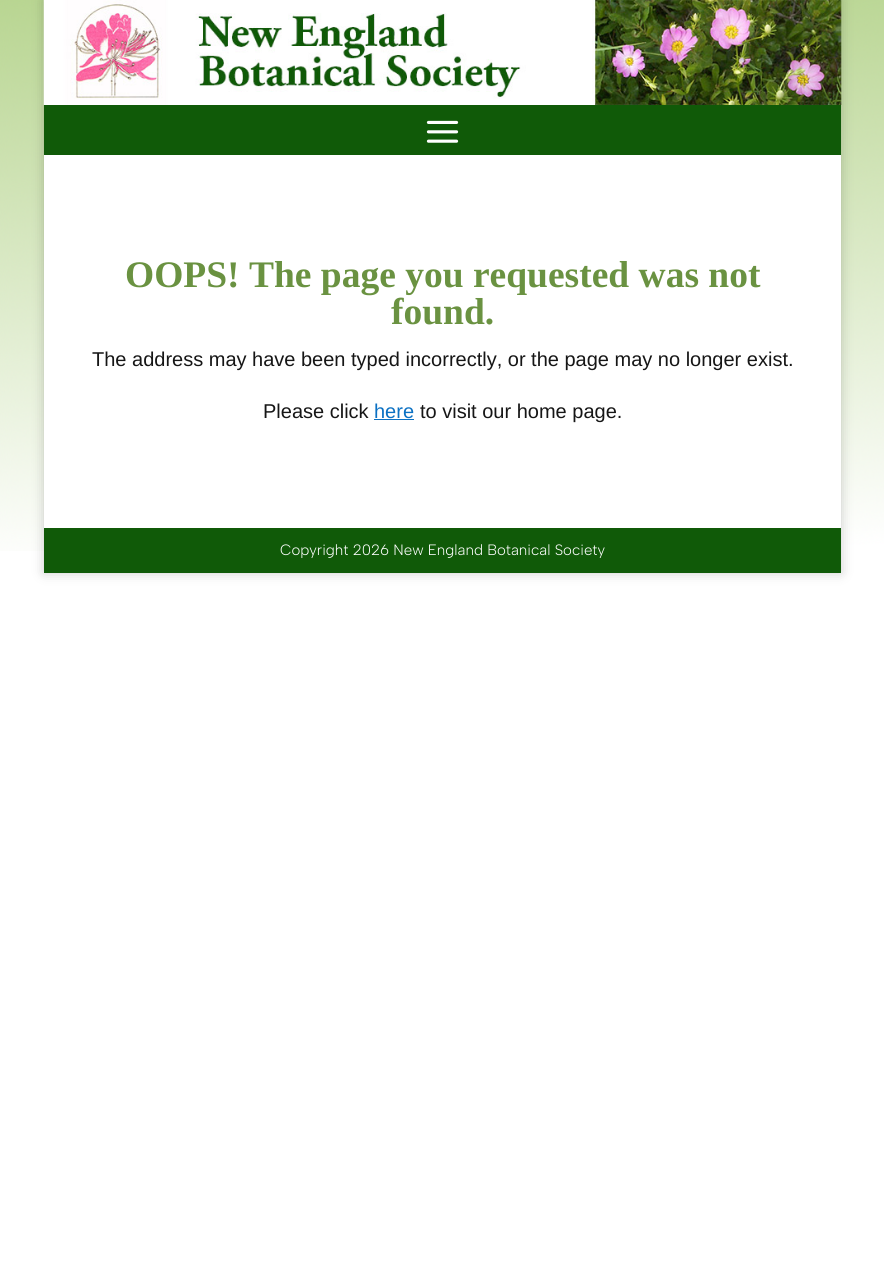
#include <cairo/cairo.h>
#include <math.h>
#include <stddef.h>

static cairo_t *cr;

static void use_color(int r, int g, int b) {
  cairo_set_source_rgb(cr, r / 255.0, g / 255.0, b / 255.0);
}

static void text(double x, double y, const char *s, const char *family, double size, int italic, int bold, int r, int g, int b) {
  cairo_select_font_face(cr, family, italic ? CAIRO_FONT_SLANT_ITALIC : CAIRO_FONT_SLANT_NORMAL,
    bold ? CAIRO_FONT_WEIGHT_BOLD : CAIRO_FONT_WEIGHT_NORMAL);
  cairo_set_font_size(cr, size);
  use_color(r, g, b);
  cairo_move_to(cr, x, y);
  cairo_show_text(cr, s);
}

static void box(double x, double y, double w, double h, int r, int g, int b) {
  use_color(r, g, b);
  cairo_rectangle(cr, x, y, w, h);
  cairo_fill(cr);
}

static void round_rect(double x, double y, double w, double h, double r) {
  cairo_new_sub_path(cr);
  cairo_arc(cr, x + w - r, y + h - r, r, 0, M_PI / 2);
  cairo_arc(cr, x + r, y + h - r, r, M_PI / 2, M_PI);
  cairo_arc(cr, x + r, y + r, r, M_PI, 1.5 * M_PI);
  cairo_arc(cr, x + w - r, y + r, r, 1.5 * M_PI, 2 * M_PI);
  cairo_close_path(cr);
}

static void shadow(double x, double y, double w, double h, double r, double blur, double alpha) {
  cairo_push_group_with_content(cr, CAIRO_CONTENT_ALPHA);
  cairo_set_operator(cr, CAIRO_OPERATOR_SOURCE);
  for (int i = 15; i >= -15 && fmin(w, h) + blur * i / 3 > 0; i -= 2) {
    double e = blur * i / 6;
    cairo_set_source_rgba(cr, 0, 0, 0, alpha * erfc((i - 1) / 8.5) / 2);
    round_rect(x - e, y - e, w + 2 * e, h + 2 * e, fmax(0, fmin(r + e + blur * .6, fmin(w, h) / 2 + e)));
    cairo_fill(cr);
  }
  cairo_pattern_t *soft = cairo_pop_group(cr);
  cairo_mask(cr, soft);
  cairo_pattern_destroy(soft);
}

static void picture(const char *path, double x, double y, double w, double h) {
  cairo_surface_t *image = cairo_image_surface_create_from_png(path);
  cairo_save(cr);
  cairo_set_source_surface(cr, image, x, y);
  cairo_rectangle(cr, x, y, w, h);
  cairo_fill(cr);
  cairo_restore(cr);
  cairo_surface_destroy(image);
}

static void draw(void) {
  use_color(255, 255, 255);
  cairo_paint(cr);
  picture("img_01.png", 0, 0, 884, 551);
  use_color(0, 0, 0);
  shadow(44, 0, 797, 573, 0, 6, 0.2);
  picture("img_02.png", 43, 0, 799, 105);
  box(44, 105, 797, 50, 16, 90, 8);
  picture("img_03.png", 426, 120, 33, 23);
  box(44, 155, 797, 373, 255, 255, 255);
  box(374, 419, 40, 1, 12, 113, 195);
  box(44, 528, 797, 45, 16, 90, 8);
  text(125, 287, "OOPS! The page you requested was not", "Liberation Serif", 37.5, 0, 1, 106, 146, 65);
  text(391, 324, "found.", "Liberation Serif", 37.5, 0, 1, 106, 146, 65);
  text(92, 366, "The address may have been typed incorrectly, or the page may no longer exist.", "Liberation Sans", 20, 0, 0, 22, 22, 22);
  text(263, 418, "Please click", "Liberation Sans", 20, 0, 0, 22, 22, 22);
  text(374, 418, "here", "Liberation Sans", 20, 0, 0, 12, 113, 195);
  text(420, 418, "to visit our home page.", "Liberation Sans", 20, 0, 0, 22, 22, 22);
  text(280, 555, "Copyright 2026 New England Botanical Society", "Albert Sans Light", 15, 0, 0, 255, 255, 255);
}

int main(void) {
  cairo_surface_t *surface = cairo_image_surface_create(CAIRO_FORMAT_RGB24, 884, 1288);
  cr = cairo_create(surface);
  cairo_font_options_t *options = cairo_font_options_create();
  cairo_font_options_set_hint_metrics(options, CAIRO_HINT_METRICS_OFF);
  cairo_font_options_set_hint_style(options, CAIRO_HINT_STYLE_NONE);
  cairo_set_font_options(cr, options);
  cairo_set_miter_limit(cr, 4);
  draw();
  cairo_surface_write_to_png(surface, "out.png");
  cairo_font_options_destroy(options);
  cairo_destroy(cr);
  cairo_surface_destroy(surface);
  return 0;
}
